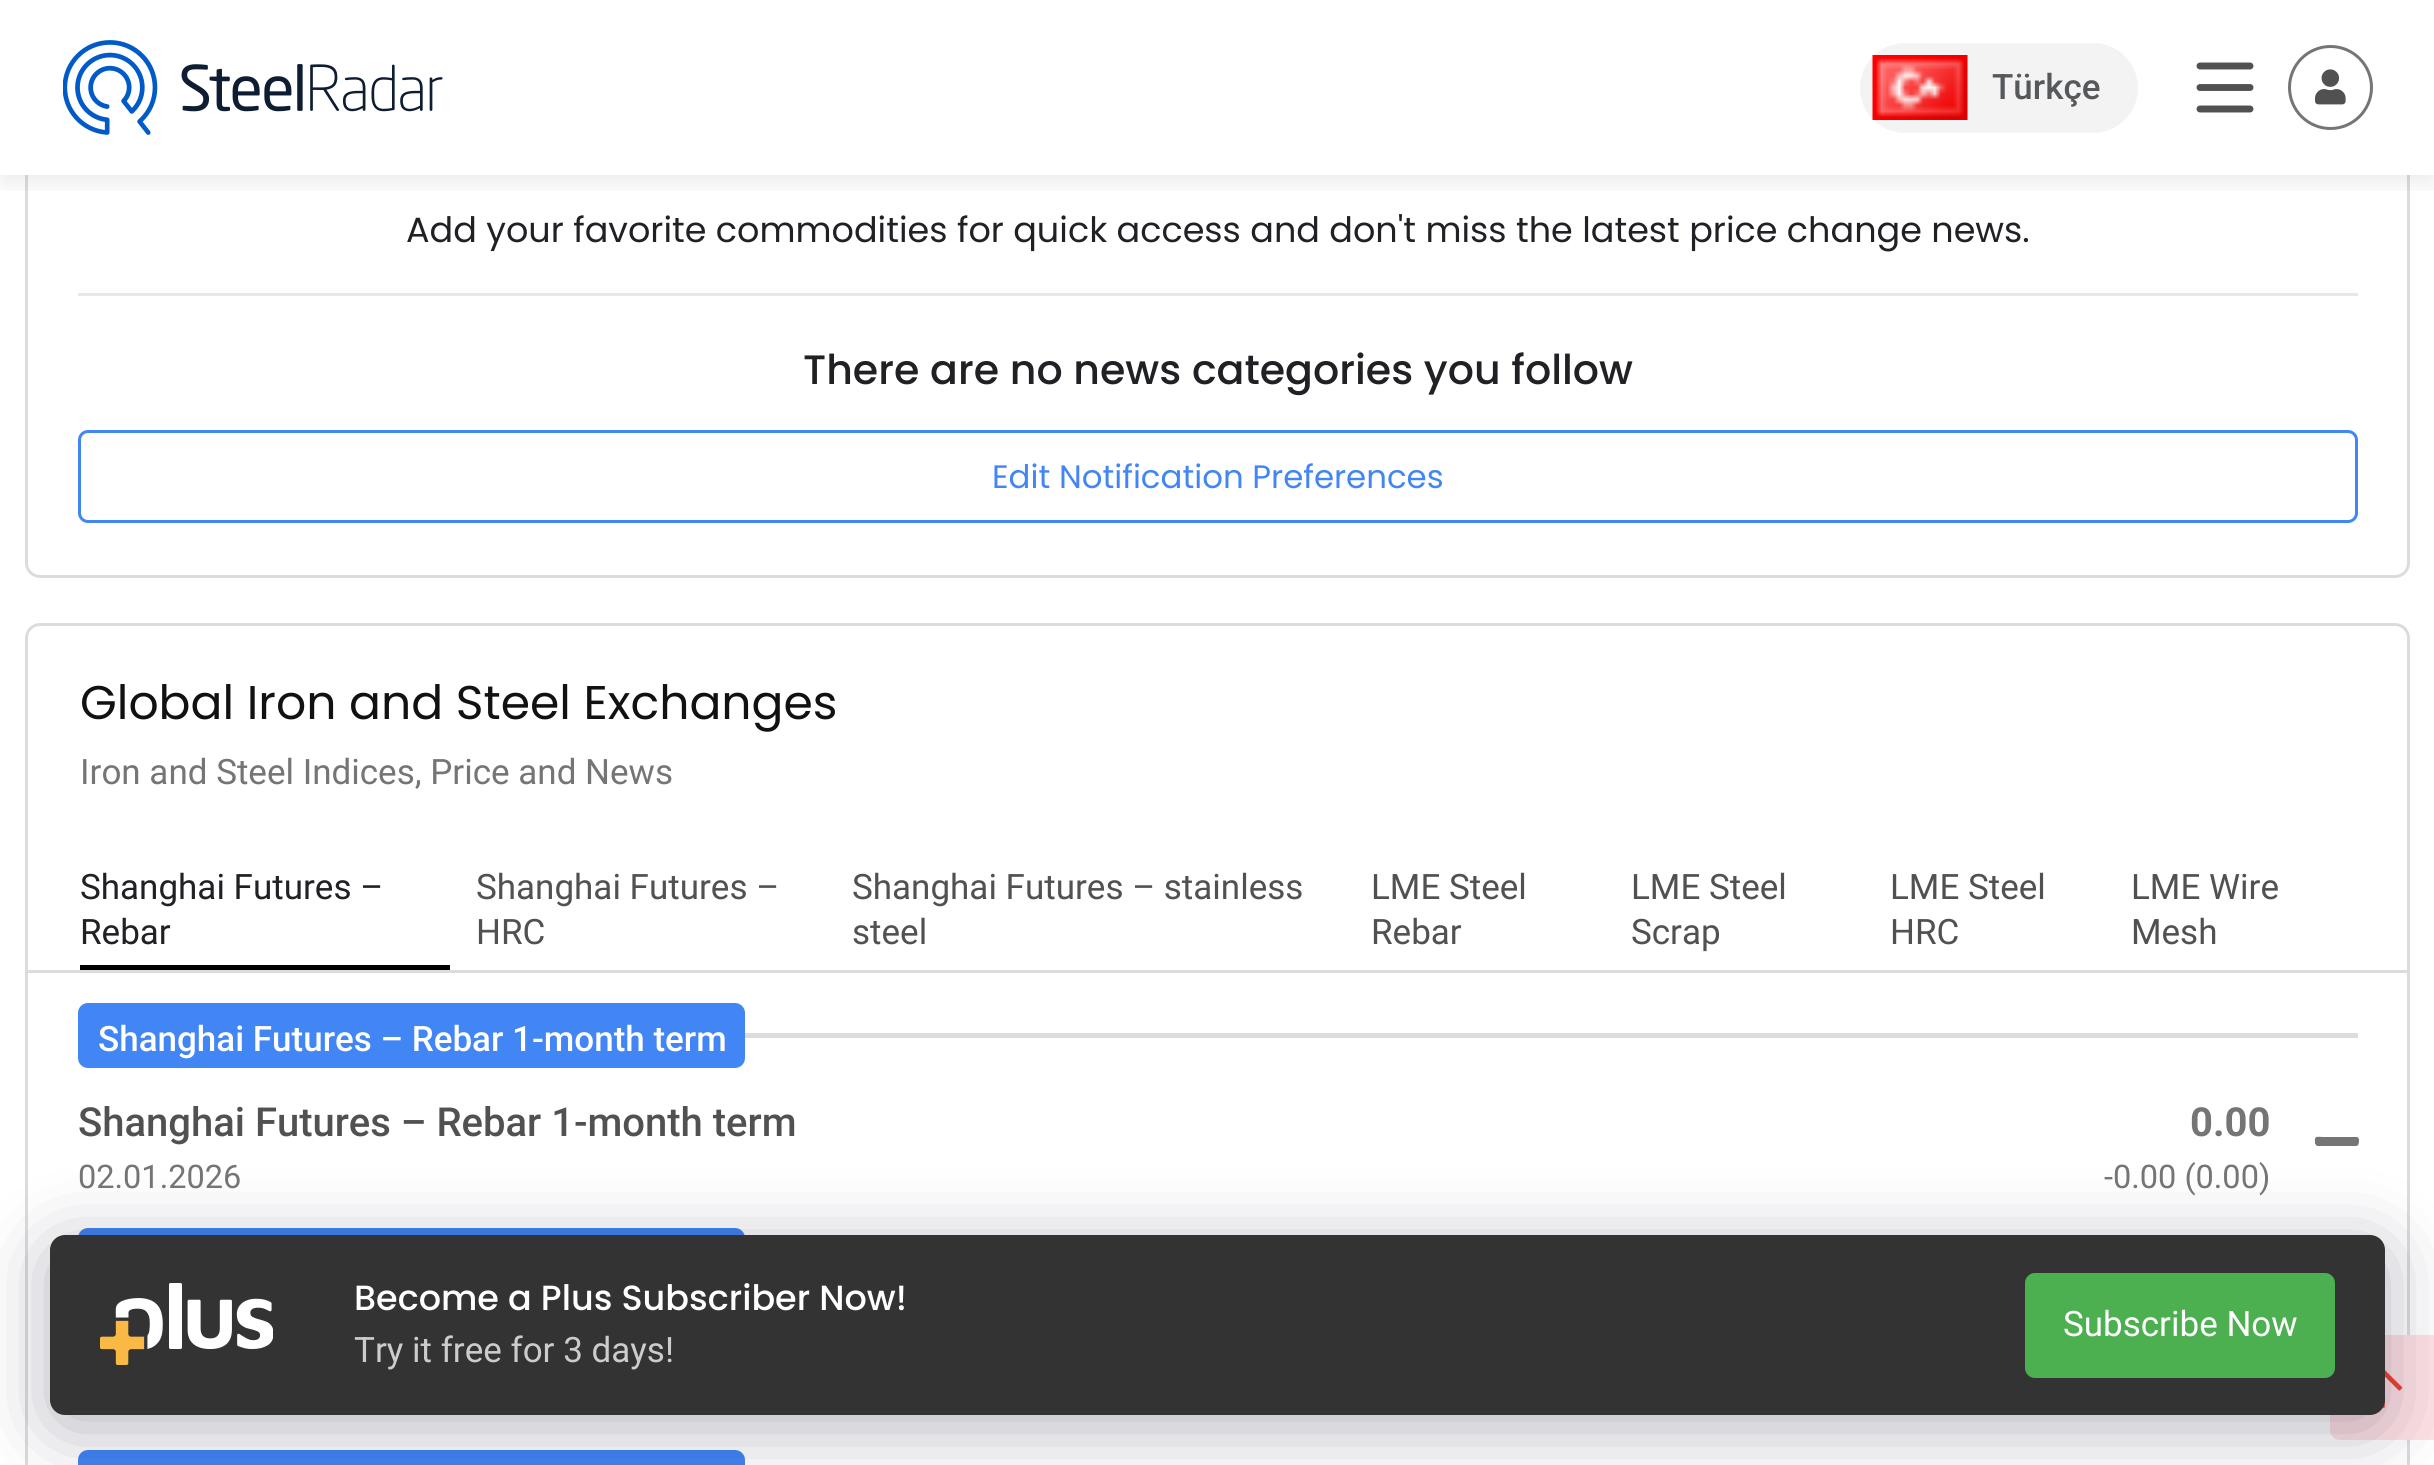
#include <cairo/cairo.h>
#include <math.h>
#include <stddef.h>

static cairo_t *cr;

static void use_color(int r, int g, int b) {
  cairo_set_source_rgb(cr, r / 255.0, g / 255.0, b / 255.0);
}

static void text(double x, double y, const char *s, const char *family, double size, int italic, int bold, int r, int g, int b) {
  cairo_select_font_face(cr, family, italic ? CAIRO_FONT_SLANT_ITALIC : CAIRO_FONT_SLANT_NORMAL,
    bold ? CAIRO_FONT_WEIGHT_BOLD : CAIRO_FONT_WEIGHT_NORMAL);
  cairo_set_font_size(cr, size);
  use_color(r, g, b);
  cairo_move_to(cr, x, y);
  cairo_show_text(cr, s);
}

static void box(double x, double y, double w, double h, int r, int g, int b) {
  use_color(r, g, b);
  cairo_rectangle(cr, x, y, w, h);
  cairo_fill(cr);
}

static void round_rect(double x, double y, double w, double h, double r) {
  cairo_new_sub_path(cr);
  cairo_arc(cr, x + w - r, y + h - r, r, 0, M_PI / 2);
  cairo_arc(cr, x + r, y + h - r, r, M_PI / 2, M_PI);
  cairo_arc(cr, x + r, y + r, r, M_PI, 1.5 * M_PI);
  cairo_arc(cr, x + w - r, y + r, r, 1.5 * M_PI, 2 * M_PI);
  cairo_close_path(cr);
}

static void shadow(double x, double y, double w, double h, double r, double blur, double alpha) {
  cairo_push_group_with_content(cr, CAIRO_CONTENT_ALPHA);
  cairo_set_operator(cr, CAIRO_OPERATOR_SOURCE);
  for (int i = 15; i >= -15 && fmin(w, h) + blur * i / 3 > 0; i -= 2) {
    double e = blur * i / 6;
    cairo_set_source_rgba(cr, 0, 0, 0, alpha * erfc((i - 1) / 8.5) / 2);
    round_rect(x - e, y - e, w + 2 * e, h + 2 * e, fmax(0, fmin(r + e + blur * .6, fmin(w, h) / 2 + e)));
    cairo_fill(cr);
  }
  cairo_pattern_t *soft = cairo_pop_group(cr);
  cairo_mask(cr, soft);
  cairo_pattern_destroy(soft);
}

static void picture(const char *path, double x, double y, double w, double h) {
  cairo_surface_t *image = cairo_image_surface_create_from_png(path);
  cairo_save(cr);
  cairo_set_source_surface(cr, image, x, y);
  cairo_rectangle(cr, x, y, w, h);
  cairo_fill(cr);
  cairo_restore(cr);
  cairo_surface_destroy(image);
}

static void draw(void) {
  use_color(255, 255, 255);
  cairo_paint(cr);
  round_rect(26.5, -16.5, 2382, 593, 13.5);
  use_color(218, 220, 224);
  cairo_set_line_width(cr, 3);
  cairo_stroke(cr);
  box(25, 0, 2385, 175, 255, 255, 255);
  cairo_save(cr);
  cairo_rectangle(cr, 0, 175, 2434, 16);
  cairo_clip(cr);
  use_color(0, 0, 0);
  shadow(0, 10, 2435, 175, 0, 10.5, 0.07);
  cairo_restore(cr);
  picture("img_01.png", 63, 40, 380, 95);
  use_color(243, 243, 243);
  round_rect(1860, 43, 278, 90, 45);
  cairo_fill(cr);
  picture("img_02.png", 1872, 55, 96, 65);
  cairo_new_path(cr);
  cairo_move_to(cr, 2200, 66);
  cairo_line_to(cr, 2250, 66);
  cairo_move_to(cr, 2200, 87.5);
  cairo_line_to(cr, 2250, 87.5);
  cairo_move_to(cr, 2200, 109);
  cairo_line_to(cr, 2250, 109);
  use_color(81, 81, 81);
  cairo_set_line_width(cr, 6.9);
  cairo_set_line_cap(cr, CAIRO_LINE_CAP_ROUND);
  cairo_stroke(cr);
  cairo_arc(cr, 2330.5, 87.5, 41, 0, 2 * M_PI);
  use_color(117, 117, 117);
  cairo_set_line_width(cr, 3);
  cairo_set_line_cap(cr, CAIRO_LINE_CAP_BUTT);
  cairo_stroke(cr);
  picture("img_03.png", 2315, 69, 31, 36);
  box(78, 293, 2280, 3, 231, 231, 231);
  round_rect(79.5, 431.5, 2277, 90, 8.5);
  use_color(66, 133, 244);
  cairo_stroke(cr);
  round_rect(26.5, 624.5, 2382, 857, 13.5);
  use_color(218, 220, 224);
  cairo_stroke(cr);
  box(28, 970, 2380, 3, 218, 220, 224);
  box(80, 965, 370, 5, 0, 0, 0);
  use_color(66, 133, 244);
  round_rect(78, 1003, 667, 65, 10);
  cairo_fill(cr);
  box(745, 1033, 1613, 5, 218, 220, 224);
  use_color(117, 117, 117);
  cairo_new_path(cr);
  cairo_move_to(cr, 2356, 1137);
  cairo_line_to(cr, 2357, 1137);
  cairo_curve_to(cr, 2358, 1137, 2359, 1139, 2359, 1140);
  cairo_curve_to(cr, 2359, 1142, 2359, 1146, 2356, 1146);
  cairo_line_to(cr, 2317, 1146);
  cairo_curve_to(cr, 2316, 1145, 2315, 1144, 2315, 1143);
  cairo_curve_to(cr, 2314, 1135, 2317, 1137, 2324, 1137);
  cairo_close_path(cr);
  cairo_fill(cr);
  use_color(66, 133, 244);
  round_rect(78, 1228, 667, 65, 10);
  cairo_fill(cr);
  round_rect(78, 1450, 667, 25, 10);
  cairo_fill(cr);
  use_color(255, 226, 229);
  cairo_new_path(cr);
  cairo_move_to(cr, 2340, 1335);
  cairo_line_to(cr, 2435, 1335);
  cairo_line_to(cr, 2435, 1440);
  cairo_line_to(cr, 2340, 1440);
  cairo_curve_to(cr, 2334.5, 1440, 2330, 1435.5, 2330, 1430);
  cairo_line_to(cr, 2330, 1345);
  cairo_curve_to(cr, 2330, 1339.5, 2334.5, 1335, 2340, 1335);
  cairo_close_path(cr);
  cairo_fill(cr);
  picture("img_05.png", 2382, 1370, 21, 38);
  use_color(5, 4, 33);
  shadow(50, 1248, 2335, 180, 15, 37.5, 0.3);
  use_color(51, 51, 51);
  round_rect(50, 1235, 2335, 180, 15);
  cairo_fill(cr);
  picture("img_04.png", 100, 1283, 173, 82);
  use_color(76, 175, 80);
  round_rect(2026.5, 1274.5, 307, 102, 8.5);
  cairo_fill_preserve(cr);
  cairo_stroke(cr);
  text(1992, 99, "Türkçe", "Roboto Medium", 35, 0, 0, 86, 89, 92);
  text(406, 242, "Add your favorite commodities for quick access and don't miss the latest price change news.", "Poppins", 35, 0, 0, 32, 33, 36);
  text(803, 384, "There are no news categories you follow", "Poppins Medium", 41.1, 0, 0, 32, 33, 36);
  text(992, 488, "Edit Notification Preferences", "Poppins", 32.4, 0, 0, 66, 133, 244);
  text(80, 719, "Global Iron and Steel Exchanges", "Poppins", 47.25, 0, 0, 17, 17, 17);
  text(80, 784, "Iron and Steel Indices, Price and News", "Roboto", 35, 0, 0, 117, 117, 117);
  text(80, 899, "Shanghai Futures –", "Roboto", 35, 0, 0, 32, 33, 36);
  text(80, 944, "Rebar", "Roboto", 35, 0, 0, 32, 33, 36);
  text(476, 899, "Shanghai Futures –", "Roboto", 35, 0, 0, 81, 81, 81);
  text(476, 944, "HRC", "Roboto", 35, 0, 0, 81, 81, 81);
  text(852, 899, "Shanghai Futures – stainless", "Roboto", 35, 0, 0, 81, 81, 81);
  text(852, 944, "steel", "Roboto", 35, 0, 0, 81, 81, 81);
  text(1371, 899, "LME Steel", "Roboto", 35, 0, 0, 81, 81, 81);
  text(1371, 944, "Rebar", "Roboto", 35, 0, 0, 81, 81, 81);
  text(1631, 899, "LME Steel", "Roboto", 35, 0, 0, 81, 81, 81);
  text(1631, 944, "Scrap", "Roboto", 35, 0, 0, 81, 81, 81);
  text(1890, 899, "LME Steel", "Roboto", 35, 0, 0, 81, 81, 81);
  text(1890, 944, "HRC", "Roboto", 35, 0, 0, 81, 81, 81);
  text(2131, 899, "LME Wire", "Roboto", 35, 0, 0, 81, 81, 81);
  text(2131, 944, "Mesh", "Roboto", 35, 0, 0, 81, 81, 81);
  text(98, 1051, "Shanghai Futures – Rebar 1-month term", "Roboto Medium", 35, 0, 0, 255, 255, 255);
  text(78, 1136, "Shanghai Futures – Rebar 1-month term", "Roboto Medium", 40, 0, 0, 81, 81, 81);
  text(78, 1188, "02.01.2026", "Roboto", 32.5, 0, 0, 117, 117, 117);
  text(2190, 1136, "0.00", "Roboto", 40, 0, 1, 117, 117, 117);
  text(2104, 1188, "-0.00 (0.00)", "Roboto", 32.5, 0, 0, 117, 117, 117);
  text(354, 1310, "Become a Plus Subscriber Now!", "Poppins Medium", 35, 0, 0, 255, 255, 255);
  text(354, 1362, "Try it free for 3 days!", "Roboto", 35, 0, 0, 204, 204, 204);
  text(2063, 1336, "Subscribe Now", "Roboto", 35, 0, 0, 255, 255, 255);
}

int main(void) {
  cairo_surface_t *surface = cairo_image_surface_create(CAIRO_FORMAT_RGB24, 2434, 1465);
  cr = cairo_create(surface);
  cairo_font_options_t *options = cairo_font_options_create();
  cairo_font_options_set_hint_metrics(options, CAIRO_HINT_METRICS_OFF);
  cairo_font_options_set_hint_style(options, CAIRO_HINT_STYLE_NONE);
  cairo_set_font_options(cr, options);
  cairo_set_miter_limit(cr, 4);
  draw();
  cairo_surface_write_to_png(surface, "out.png");
  cairo_font_options_destroy(options);
  cairo_destroy(cr);
  cairo_surface_destroy(surface);
  return 0;
}
